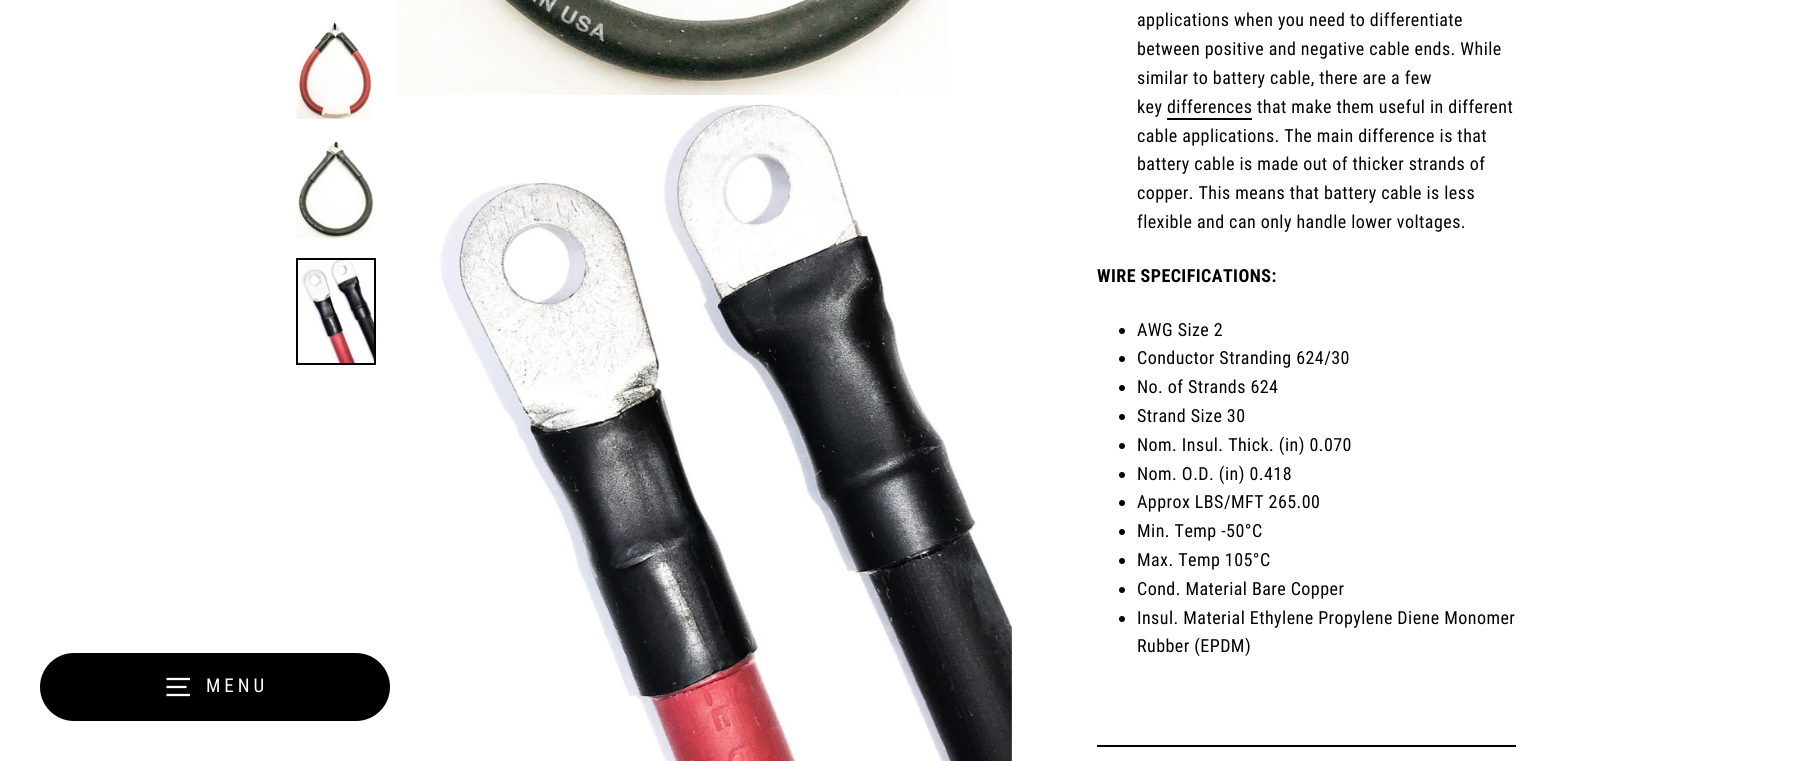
#include <cairo/cairo.h>
#include <math.h>
#include <stddef.h>

static cairo_t *cr;

static void use_color(int r, int g, int b) {
  cairo_set_source_rgb(cr, r / 255.0, g / 255.0, b / 255.0);
}

static void spaced_text(double x, double y, const char *s, double letter, double word) {
  cairo_move_to(cr, x, y);
  while (*s) {
    char ch[5] = {0};
    int n = 0;
    do ch[n++] = *s++; while ((*s & 0xC0) == 0x80);
    cairo_show_text(cr, ch);
    cairo_rel_move_to(cr, letter + word * (*ch == ' '), 0);
  }
}

static void box(double x, double y, double w, double h, int r, int g, int b) {
  use_color(r, g, b);
  cairo_rectangle(cr, x, y, w, h);
  cairo_fill(cr);
}

static void round_rect(double x, double y, double w, double h, double r) {
  cairo_new_sub_path(cr);
  cairo_arc(cr, x + w - r, y + h - r, r, 0, M_PI / 2);
  cairo_arc(cr, x + r, y + h - r, r, M_PI / 2, M_PI);
  cairo_arc(cr, x + r, y + r, r, M_PI, 1.5 * M_PI);
  cairo_arc(cr, x + w - r, y + r, r, 1.5 * M_PI, 2 * M_PI);
  cairo_close_path(cr);
}

static void picture(const char *path, double x, double y, double w, double h) {
  cairo_surface_t *image = cairo_image_surface_create_from_png(path);
  cairo_save(cr);
  cairo_set_source_surface(cr, image, x, y);
  cairo_rectangle(cr, x, y, w, h);
  cairo_fill(cr);
  cairo_restore(cr);
  cairo_surface_destroy(image);
}

static void draw(void) {
  use_color(255, 255, 255);
  cairo_paint(cr);
  picture("img_01.png", 296, 22, 77, 97);
  picture("img_02.png", 296, 141, 80, 97);
  picture("img_03.png", 302, 260, 72, 103);
  cairo_rectangle(cr, 297, 259, 78, 105);
  use_color(0, 0, 0);
  cairo_stroke(cr);
  picture("img_04.png", 396, 0, 553, 95);
  picture("img_05.png", 440, 104, 572, 657);
  box(1167, 118, 85, 2, 0, 0, 0);
  cairo_arc(cr, 1122, 331, 3, 0, 2 * M_PI);
  cairo_fill(cr);
  cairo_arc(cr, 1122, 359, 3, 0, 2 * M_PI);
  cairo_fill(cr);
  cairo_arc(cr, 1122, 388, 3, 0, 2 * M_PI);
  cairo_fill(cr);
  cairo_arc(cr, 1122, 417, 3, 0, 2 * M_PI);
  cairo_fill(cr);
  cairo_arc(cr, 1122, 446, 3, 0, 2 * M_PI);
  cairo_fill(cr);
  cairo_arc(cr, 1122, 475, 3, 0, 2 * M_PI);
  cairo_fill(cr);
  cairo_arc(cr, 1122, 503, 3, 0, 2 * M_PI);
  cairo_fill(cr);
  cairo_arc(cr, 1122, 532, 3, 0, 2 * M_PI);
  cairo_fill(cr);
  cairo_arc(cr, 1122, 561, 3, 0, 2 * M_PI);
  cairo_fill(cr);
  cairo_arc(cr, 1122, 590, 3, 0, 2 * M_PI);
  cairo_fill(cr);
  cairo_arc(cr, 1122, 619, 3, 0, 2 * M_PI);
  cairo_fill(cr);
  box(1097, 745, 419, 2, 0, 0, 0);
  round_rect(40, 653, 350, 68, 34);
  cairo_fill(cr);
  cairo_new_path(cr);
  cairo_move_to(cr, 166.5, 679);
  cairo_line_to(cr, 190, 679);
  cairo_move_to(cr, 166.5, 687);
  cairo_line_to(cr, 186.5, 687);
  cairo_move_to(cr, 166.5, 695);
  cairo_line_to(cr, 190, 695);
  use_color(255, 255, 255);
  cairo_set_line_width(cr, 2.3);
  cairo_stroke(cr);
  cairo_select_font_face(cr, "Roboto Condensed", CAIRO_FONT_SLANT_NORMAL, CAIRO_FONT_WEIGHT_NORMAL);
  cairo_set_font_size(cr, 18);
  use_color(0, 0, 0);
  spaced_text(1137, 26, "applications when you need to differentiate", 0.45, 0);
  spaced_text(1137, 55, "between positive and negative cable ends. While", 0.45, 0);
  spaced_text(1137, 84, "similar to battery cable, there are a few", 0.45, 0);
  spaced_text(1137, 113, "key differences that make them useful in different", 0.45, 0);
  spaced_text(1137, 142, "cable applications. The main difference is that", 0.45, 0);
  spaced_text(1137, 170, "battery cable is made out of thicker strands of", 0.45, 0);
  spaced_text(1137, 199, "copper. This means that battery cable is less", 0.45, 0);
  spaced_text(1137, 228, "flexible and can only handle lower voltages.", 0.45, 0);
  cairo_select_font_face(cr, "Roboto Condensed", CAIRO_FONT_SLANT_NORMAL, CAIRO_FONT_WEIGHT_BOLD);
  spaced_text(1097, 282, "WIRE SPECIFICATIONS:", 0.45, 0);
  cairo_select_font_face(cr, "Roboto Condensed", CAIRO_FONT_SLANT_NORMAL, CAIRO_FONT_WEIGHT_NORMAL);
  spaced_text(1137, 336, "AWG Size 2", 0.45, 0);
  spaced_text(1137, 364, "Conductor Stranding 624/30", 0.45, 0);
  spaced_text(1137, 393, "No. of Strands 624", 0.45, 0);
  spaced_text(1137, 422, "Strand Size 30", 0.45, 0);
  spaced_text(1137, 451, "Nom. Insul. Thick. (in) 0.070", 0.45, 0);
  spaced_text(1137, 480, "Nom. O.D. (in) 0.418", 0.45, 0);
  spaced_text(1137, 508, "Approx LBS/MFT 265.00", 0.45, 0);
  spaced_text(1137, 537, "Min. Temp -50°C", 0.45, 0);
  spaced_text(1137, 566, "Max. Temp 105°C", 0.45, 0);
  spaced_text(1137, 595, "Cond. Material Bare Copper", 0.45, 0);
  spaced_text(1137, 624, "Insul. Material Ethylene Propylene Diene Monomer", 0.45, 0);
  spaced_text(1137, 652, "Rubber (EPDM)", 0.45, 0);
  cairo_set_font_size(cr, 19);
  use_color(255, 255, 255);
  spaced_text(206, 692, "MENU", 4, 0);
}

int main(void) {
  cairo_surface_t *surface = cairo_image_surface_create(CAIRO_FORMAT_RGB24, 1812, 761);
  cr = cairo_create(surface);
  cairo_font_options_t *options = cairo_font_options_create();
  cairo_font_options_set_hint_metrics(options, CAIRO_HINT_METRICS_OFF);
  cairo_font_options_set_hint_style(options, CAIRO_HINT_STYLE_NONE);
  cairo_set_font_options(cr, options);
  cairo_set_miter_limit(cr, 4);
  draw();
  cairo_surface_write_to_png(surface, "out.png");
  cairo_font_options_destroy(options);
  cairo_destroy(cr);
  cairo_surface_destroy(surface);
  return 0;
}
